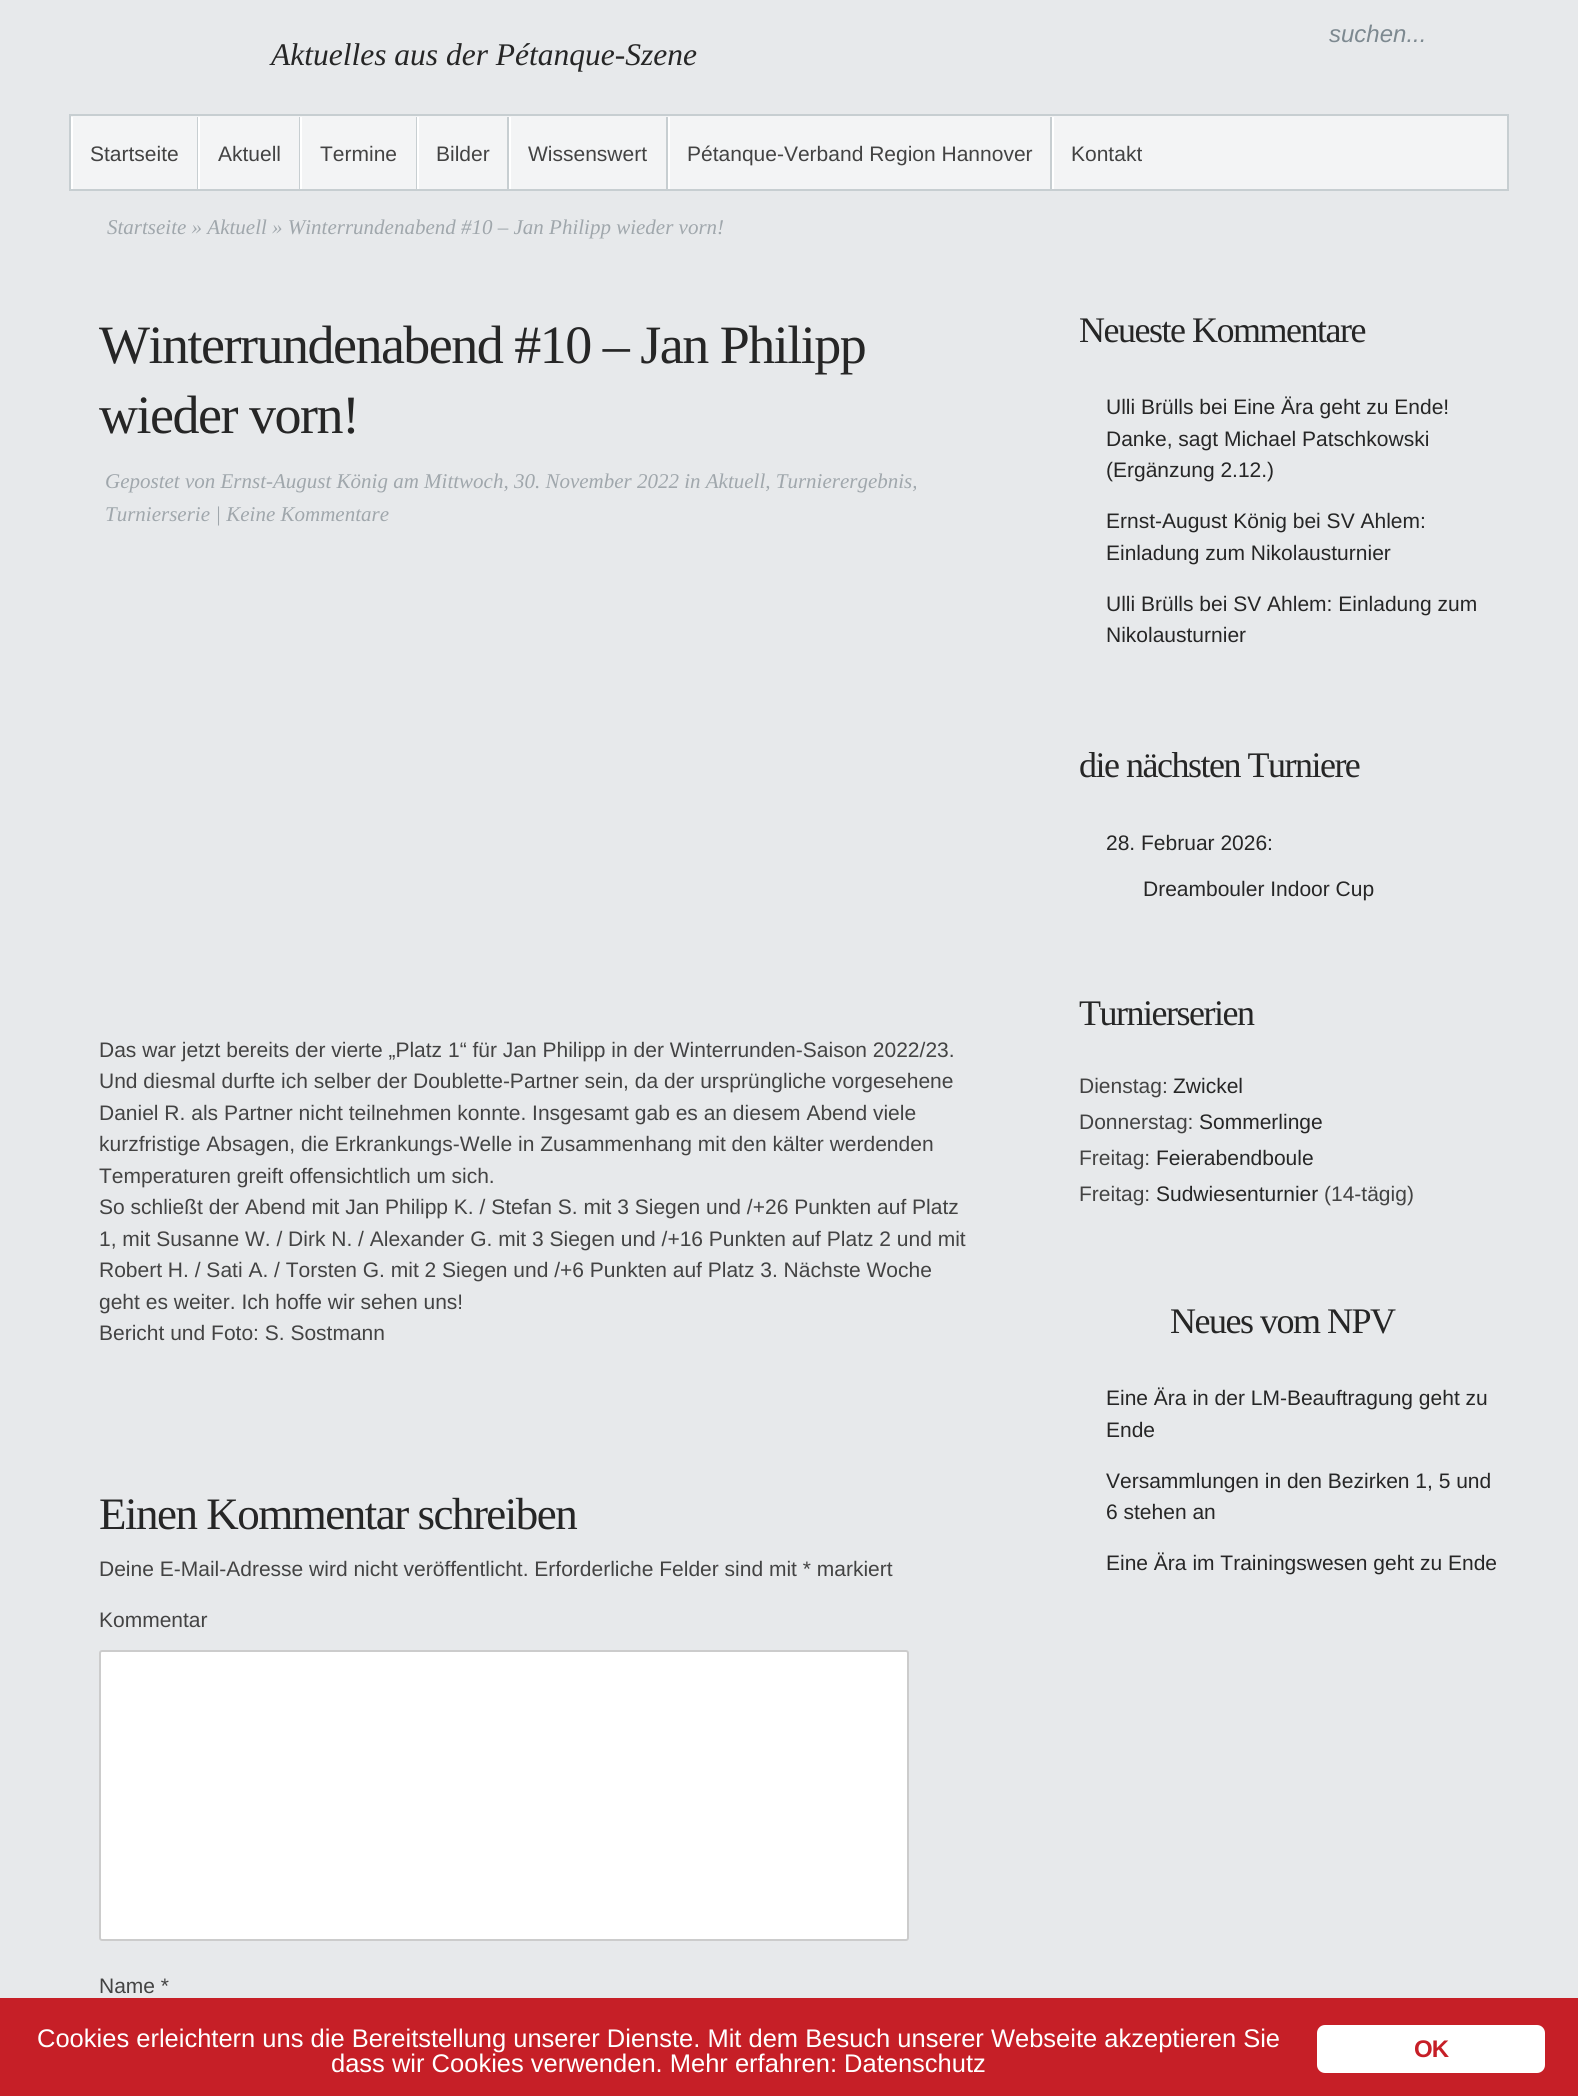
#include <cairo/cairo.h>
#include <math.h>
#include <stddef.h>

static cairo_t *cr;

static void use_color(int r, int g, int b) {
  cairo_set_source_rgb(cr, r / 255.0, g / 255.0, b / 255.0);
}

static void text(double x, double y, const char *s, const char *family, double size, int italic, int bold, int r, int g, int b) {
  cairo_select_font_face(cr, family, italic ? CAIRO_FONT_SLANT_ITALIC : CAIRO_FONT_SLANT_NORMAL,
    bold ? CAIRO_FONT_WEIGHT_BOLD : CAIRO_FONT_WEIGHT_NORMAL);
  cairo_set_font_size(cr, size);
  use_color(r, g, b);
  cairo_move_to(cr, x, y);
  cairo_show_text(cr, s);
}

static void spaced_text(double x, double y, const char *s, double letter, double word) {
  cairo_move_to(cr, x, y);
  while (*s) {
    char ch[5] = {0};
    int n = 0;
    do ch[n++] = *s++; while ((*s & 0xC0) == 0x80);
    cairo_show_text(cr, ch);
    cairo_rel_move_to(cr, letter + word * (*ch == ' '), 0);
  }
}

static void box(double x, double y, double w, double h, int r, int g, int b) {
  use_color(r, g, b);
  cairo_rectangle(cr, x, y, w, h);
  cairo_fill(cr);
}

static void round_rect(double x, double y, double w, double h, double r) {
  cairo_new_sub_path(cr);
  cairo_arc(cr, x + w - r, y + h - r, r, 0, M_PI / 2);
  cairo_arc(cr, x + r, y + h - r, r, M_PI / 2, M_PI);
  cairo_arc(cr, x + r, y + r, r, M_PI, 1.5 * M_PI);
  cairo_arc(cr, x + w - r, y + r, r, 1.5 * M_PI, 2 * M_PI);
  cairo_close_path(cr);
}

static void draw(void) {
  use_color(231, 233, 235);
  cairo_paint(cr);
  use_color(243, 244, 245);
  cairo_rectangle(cr, 70, 115, 1438, 75);
  cairo_fill_preserve(cr);
  use_color(199, 206, 209);
  cairo_stroke(cr);
  box(197, 117, 1, 72, 199, 206, 209);
  box(71, 117, 2, 72, 255, 255, 255);
  box(299, 117, 1, 72, 199, 206, 209);
  box(198, 117, 2, 72, 255, 255, 255);
  box(416, 117, 1, 72, 199, 206, 209);
  box(300, 117, 2, 72, 255, 255, 255);
  box(507, 117, 2, 72, 199, 206, 209);
  box(417, 117, 2, 72, 255, 255, 255);
  box(666, 117, 2, 72, 199, 206, 209);
  box(509, 117, 2, 72, 255, 255, 255);
  box(1050, 117, 2, 72, 199, 206, 209);
  box(668, 117, 2, 72, 255, 255, 255);
  box(1052, 117, 2, 72, 255, 255, 255);
  round_rect(100, 1651, 808, 289, 2);
  cairo_fill_preserve(cr);
  use_color(204, 204, 204);
  cairo_stroke(cr);
  box(0, 1998, 1578, 98, 198, 31, 39);
  use_color(255, 255, 255);
  round_rect(1317, 2025, 228, 48, 8);
  cairo_fill(cr);
  text(1329, 42, "suchen...", "Liberation Sans", 24, 1, 0, 125, 137, 144);
  text(271, 65, "Aktuelles aus der Pétanque-Szene", "Liberation Serif", 31.5, 1, 0, 38, 38, 38);
  text(90, 161, "Startseite", "Liberation Sans", 21, 0, 0, 67, 67, 67);
  text(218, 161, "Aktuell", "Liberation Sans", 21, 0, 0, 67, 67, 67);
  text(320, 161, "Termine", "Liberation Sans", 21, 0, 0, 67, 67, 67);
  text(436, 161, "Bilder", "Liberation Sans", 21, 0, 0, 67, 67, 67);
  text(528, 161, "Wissenswert", "Liberation Sans", 21, 0, 0, 67, 67, 67);
  text(687, 161, "Pétanque-Verband Region Hannover", "Liberation Sans", 21, 0, 0, 67, 67, 67);
  text(1071, 161, "Kontakt", "Liberation Sans", 21, 0, 0, 67, 67, 67);
  text(107, 234, "Startseite » Aktuell » Winterrundenabend #10 – Jan Philipp wieder vorn!", "Liberation Serif", 21, 1, 0, 160, 167, 172);
  cairo_select_font_face(cr, "Liberation Serif", CAIRO_FONT_SLANT_NORMAL, CAIRO_FONT_WEIGHT_NORMAL);
  cairo_set_font_size(cr, 54);
  use_color(38, 38, 38);
  spaced_text(99, 363, "Winterrundenabend #10 – Jan Philipp", -1.5, 0);
  spaced_text(99, 433, "wieder vorn!", -1.5, 0);
  text(105, 488, "Gepostet von Ernst-August König am Mittwoch, 30. November 2022 in Aktuell, Turnierergebnis,", "Liberation Serif", 21, 1, 0, 160, 167, 172);
  text(105, 521, "Turnierserie | Keine Kommentare", "Liberation Serif", 21, 1, 0, 160, 167, 172);
  text(99, 1057, "Das war jetzt bereits der vierte „Platz 1“ für Jan Philipp in der Winterrunden-Saison 2022/23.", "Liberation Sans", 21, 0, 0, 67, 67, 67);
  text(99, 1088, "Und diesmal durfte ich selber der Doublette-Partner sein, da der ursprüngliche vorgesehene", "Liberation Sans", 21, 0, 0, 67, 67, 67);
  text(99, 1120, "Daniel R. als Partner nicht teilnehmen konnte. Insgesamt gab es an diesem Abend viele", "Liberation Sans", 21, 0, 0, 67, 67, 67);
  text(99, 1151, "kurzfristige Absagen, die Erkrankungs-Welle in Zusammenhang mit den kälter werdenden", "Liberation Sans", 21, 0, 0, 67, 67, 67);
  text(99, 1183, "Temperaturen greift offensichtlich um sich.", "Liberation Sans", 21, 0, 0, 67, 67, 67);
  text(99, 1214, "So schließt der Abend mit Jan Philipp K. / Stefan S. mit 3 Siegen und /+26 Punkten auf Platz", "Liberation Sans", 21, 0, 0, 67, 67, 67);
  text(99, 1246, "1, mit Susanne W. / Dirk N. / Alexander G. mit 3 Siegen und /+16 Punkten auf Platz 2 und mit", "Liberation Sans", 21, 0, 0, 67, 67, 67);
  text(99, 1277, "Robert H. / Sati A. / Torsten G. mit 2 Siegen und /+6 Punkten auf Platz 3. Nächste Woche", "Liberation Sans", 21, 0, 0, 67, 67, 67);
  text(99, 1309, "geht es weiter. Ich hoffe wir sehen uns!", "Liberation Sans", 21, 0, 0, 67, 67, 67);
  text(99, 1340, "Bericht und Foto: S. Sostmann", "Liberation Sans", 21, 0, 0, 67, 67, 67);
  cairo_select_font_face(cr, "Liberation Serif", CAIRO_FONT_SLANT_NORMAL, CAIRO_FONT_WEIGHT_NORMAL);
  cairo_set_font_size(cr, 45);
  use_color(38, 38, 38);
  spaced_text(99, 1529, "Einen Kommentar schreiben", -1.5, 0);
  text(99, 1576, "Deine E-Mail-Adresse wird nicht veröffentlicht. Erforderliche Felder sind mit * markiert", "Liberation Sans", 21, 0, 0, 67, 67, 67);
  text(99, 1627, "Kommentar", "Liberation Sans", 21, 0, 0, 67, 67, 67);
  text(99, 1993, "Name *", "Liberation Sans", 21, 0, 0, 67, 67, 67);
  cairo_select_font_face(cr, "Liberation Serif", CAIRO_FONT_SLANT_NORMAL, CAIRO_FONT_WEIGHT_NORMAL);
  cairo_set_font_size(cr, 36);
  use_color(38, 38, 38);
  spaced_text(1079, 342, "Neueste Kommentare", -1.5, 0);
  text(1106, 414, "Ulli Brülls bei Eine Ära geht zu Ende!", "Liberation Sans", 21, 0, 0, 38, 38, 38);
  text(1106, 446, "Danke, sagt Michael Patschkowski", "Liberation Sans", 21, 0, 0, 38, 38, 38);
  text(1106, 477, "(Ergänzung 2.12.)", "Liberation Sans", 21, 0, 0, 38, 38, 38);
  text(1106, 528, "Ernst-August König bei SV Ahlem:", "Liberation Sans", 21, 0, 0, 38, 38, 38);
  text(1106, 560, "Einladung zum Nikolausturnier", "Liberation Sans", 21, 0, 0, 38, 38, 38);
  text(1106, 611, "Ulli Brülls bei SV Ahlem: Einladung zum", "Liberation Sans", 21, 0, 0, 38, 38, 38);
  text(1106, 642, "Nikolausturnier", "Liberation Sans", 21, 0, 0, 38, 38, 38);
  cairo_select_font_face(cr, "Liberation Serif", CAIRO_FONT_SLANT_NORMAL, CAIRO_FONT_WEIGHT_NORMAL);
  cairo_set_font_size(cr, 36);
  spaced_text(1079, 777, "die nächsten Turniere", -1.5, 0);
  text(1106, 850, "28. Februar 2026:", "Liberation Sans", 21, 0, 0, 38, 38, 38);
  text(1143, 896, "Dreambouler Indoor Cup", "Liberation Sans", 21, 0, 0, 38, 38, 38);
  cairo_select_font_face(cr, "Liberation Serif", CAIRO_FONT_SLANT_NORMAL, CAIRO_FONT_WEIGHT_NORMAL);
  cairo_set_font_size(cr, 36);
  spaced_text(1079, 1025, "Turnierserien", -1.5, 0);
  text(1079, 1093, "Dienstag:", "Liberation Sans", 21, 0, 0, 67, 67, 67);
  text(1173, 1093, "Zwickel", "Liberation Sans", 21, 0, 0, 38, 38, 38);
  text(1079, 1129, "Donnerstag:", "Liberation Sans", 21, 0, 0, 67, 67, 67);
  text(1199, 1129, "Sommerlinge", "Liberation Sans", 21, 0, 0, 38, 38, 38);
  text(1079, 1165, "Freitag:", "Liberation Sans", 21, 0, 0, 67, 67, 67);
  text(1156, 1165, "Feierabendboule", "Liberation Sans", 21, 0, 0, 38, 38, 38);
  text(1079, 1201, "Freitag:", "Liberation Sans", 21, 0, 0, 67, 67, 67);
  text(1156, 1201, "Sudwiesenturnier", "Liberation Sans", 21, 0, 0, 38, 38, 38);
  text(1324, 1201, "(14-tägig)", "Liberation Sans", 21, 0, 0, 67, 67, 67);
  cairo_select_font_face(cr, "Liberation Serif", CAIRO_FONT_SLANT_NORMAL, CAIRO_FONT_WEIGHT_NORMAL);
  cairo_set_font_size(cr, 36);
  use_color(38, 38, 38);
  spaced_text(1170, 1333, "Neues vom NPV", -1.5, 0);
  text(1106, 1405, "Eine Ära in der LM-Beauftragung geht zu", "Liberation Sans", 21, 0, 0, 38, 38, 38);
  text(1106, 1437, "Ende", "Liberation Sans", 21, 0, 0, 38, 38, 38);
  text(1106, 1488, "Versammlungen in den Bezirken 1, 5 und", "Liberation Sans", 21, 0, 0, 38, 38, 38);
  text(1106, 1519, "6 stehen an", "Liberation Sans", 21, 0, 0, 38, 38, 38);
  text(1106, 1570, "Eine Ära im Trainingswesen geht zu Ende", "Liberation Sans", 21, 0, 0, 38, 38, 38);
  text(37, 2047, "Cookies erleichtern uns die Bereitstellung unserer Dienste. Mit dem Besuch unserer Webseite akzeptieren Sie", "Liberation Sans", 25.5, 0, 0, 255, 255, 255);
  text(331, 2072, "dass wir Cookies verwenden. Mehr erfahren: Datenschutz", "Liberation Sans", 25.5, 0, 0, 255, 255, 255);
  cairo_select_font_face(cr, "Liberation Sans", CAIRO_FONT_SLANT_NORMAL, CAIRO_FONT_WEIGHT_BOLD);
  cairo_set_font_size(cr, 24);
  use_color(198, 31, 39);
  spaced_text(1414, 2057, "OK", -1, 0);
}

int main(void) {
  cairo_surface_t *surface = cairo_image_surface_create(CAIRO_FORMAT_RGB24, 1578, 2096);
  cr = cairo_create(surface);
  cairo_font_options_t *options = cairo_font_options_create();
  cairo_font_options_set_hint_metrics(options, CAIRO_HINT_METRICS_OFF);
  cairo_font_options_set_hint_style(options, CAIRO_HINT_STYLE_NONE);
  cairo_set_font_options(cr, options);
  cairo_set_miter_limit(cr, 4);
  draw();
  cairo_surface_write_to_png(surface, "out.png");
  cairo_font_options_destroy(options);
  cairo_destroy(cr);
  cairo_surface_destroy(surface);
  return 0;
}
